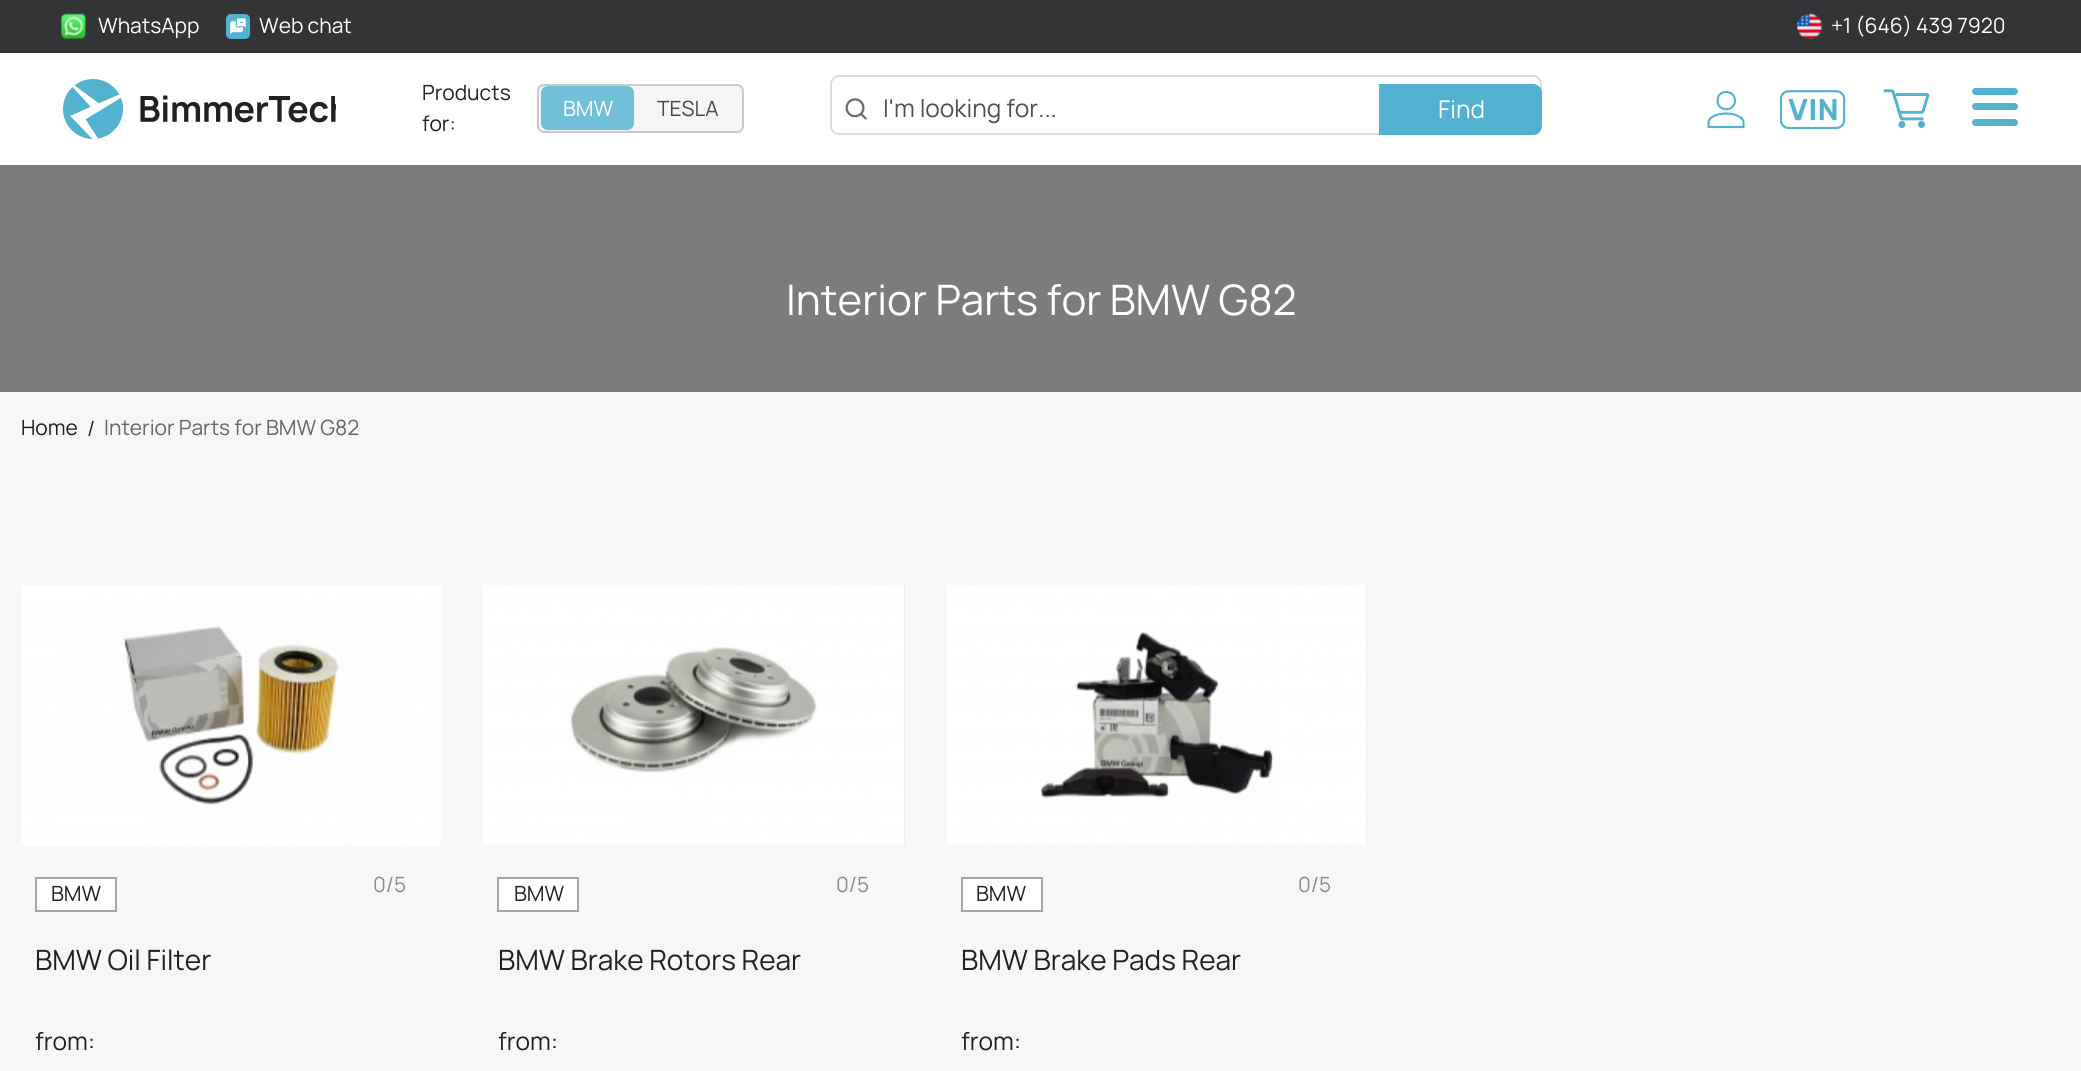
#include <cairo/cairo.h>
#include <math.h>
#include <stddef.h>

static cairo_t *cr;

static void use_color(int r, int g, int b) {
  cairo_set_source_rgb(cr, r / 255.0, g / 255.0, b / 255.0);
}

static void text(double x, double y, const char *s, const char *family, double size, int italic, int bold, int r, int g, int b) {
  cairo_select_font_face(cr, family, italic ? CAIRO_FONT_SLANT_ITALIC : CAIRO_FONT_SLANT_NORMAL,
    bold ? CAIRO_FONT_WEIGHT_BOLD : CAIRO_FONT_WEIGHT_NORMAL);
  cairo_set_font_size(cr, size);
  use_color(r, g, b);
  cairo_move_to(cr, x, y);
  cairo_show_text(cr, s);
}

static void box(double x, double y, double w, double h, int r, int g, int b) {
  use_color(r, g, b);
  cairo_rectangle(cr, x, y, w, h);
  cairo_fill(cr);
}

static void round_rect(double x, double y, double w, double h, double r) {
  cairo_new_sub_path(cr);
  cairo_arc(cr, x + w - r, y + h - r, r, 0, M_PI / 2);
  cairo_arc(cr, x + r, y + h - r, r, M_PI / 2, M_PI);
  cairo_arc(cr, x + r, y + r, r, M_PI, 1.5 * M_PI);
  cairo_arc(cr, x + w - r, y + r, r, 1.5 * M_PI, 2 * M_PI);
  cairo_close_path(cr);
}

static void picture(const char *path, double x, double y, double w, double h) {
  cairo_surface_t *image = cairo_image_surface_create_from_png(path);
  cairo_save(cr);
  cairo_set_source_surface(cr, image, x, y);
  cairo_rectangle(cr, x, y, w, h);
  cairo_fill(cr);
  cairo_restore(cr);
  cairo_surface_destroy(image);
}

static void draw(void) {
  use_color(50, 52, 54);
  cairo_paint(cr);
  picture("img_01.png", 61, 13, 26, 26);
  picture("img_02.png", 226, 14, 24, 25);
  picture("img_03.png", 1797, 13, 26, 26);
  box(0, 53, 2081, 112, 255, 255, 255);
  picture("img_04.png", 63, 79, 273, 60);
  use_color(245, 245, 245);
  round_rect(537, 84, 207, 49, 7);
  cairo_fill(cr);
  round_rect(538, 85, 205, 47, 6);
  cairo_set_source_rgba(cr, 0.129, 0.129, 0.129, 0.2);
  cairo_stroke(cr);
  use_color(82, 178, 207);
  round_rect(541, 86, 93, 44, 7);
  cairo_fill(cr);
  cairo_set_source_rgba(cr, 1, 1, 1, 0.18);
  round_rect(541, 86, 93, 44, 7);
  cairo_fill(cr);
  picture("img_05.png", 845, 98, 23, 23);
  round_rect(831, 76, 710, 58, 8);
  use_color(221, 221, 221);
  cairo_stroke(cr);
  use_color(82, 178, 207);
  cairo_new_path(cr);
  cairo_move_to(cr, 1379, 84);
  cairo_line_to(cr, 1533, 84);
  cairo_curve_to(cr, 1538, 84, 1542, 88, 1542, 93);
  cairo_line_to(cr, 1542, 126);
  cairo_curve_to(cr, 1542, 131, 1538, 135, 1533, 135);
  cairo_line_to(cr, 1379, 135);
  cairo_close_path(cr);
  cairo_fill(cr);
  cairo_new_path(cr);
  cairo_move_to(cr, 1708.5, 127);
  cairo_line_to(cr, 1708.5, 122.5);
  cairo_curve_to(cr, 1708.5, 117.5, 1716.5, 113.5, 1726, 113.5);
  cairo_curve_to(cr, 1736, 113.5, 1743.5, 117.5, 1743.5, 122.5);
  cairo_line_to(cr, 1743.5, 127);
  cairo_close_path(cr);
  cairo_move_to(cr, 1717.5, 100.5);
  cairo_curve_to(cr, 1717.5, 89, 1735, 89, 1735, 101);
  cairo_curve_to(cr, 1734.5, 112, 1717.5, 112, 1717.5, 100.5);
  cairo_close_path(cr);
  cairo_set_line_width(cr, 2.1);
  cairo_stroke(cr);
  picture("img_06.png", 1780, 90, 66, 40);
  picture("img_07.png", 1883, 89, 47, 39);
  round_rect(1972, 88, 46, 7, 3.5);
  cairo_fill(cr);
  round_rect(1972, 103, 46, 7, 3.5);
  cairo_fill(cr);
  round_rect(1972, 119, 46, 7, 3.5);
  cairo_fill(cr);
  box(0, 392, 2081, 679, 247, 247, 247);
  box(0, 165, 2081, 227, 124, 124, 124);
  picture("img_08.png", 21, 585, 420, 261);
  use_color(255, 255, 255);
  cairo_rectangle(cr, 36, 878, 80, 33);
  cairo_fill_preserve(cr);
  use_color(166, 166, 166);
  cairo_set_line_width(cr, 2);
  cairo_stroke(cr);
  box(483, 585, 422, 260, 217, 217, 217);
  picture("img_09.png", 483, 585, 422, 261);
  use_color(255, 255, 255);
  cairo_rectangle(cr, 498, 878, 80, 33);
  cairo_fill_preserve(cr);
  use_color(166, 166, 166);
  cairo_stroke(cr);
  box(947, 585, 420, 260, 217, 217, 217);
  picture("img_10.png", 947, 585, 420, 261);
  use_color(255, 255, 255);
  cairo_rectangle(cr, 962, 878, 80, 33);
  cairo_fill_preserve(cr);
  use_color(166, 166, 166);
  cairo_stroke(cr);
  text(98, 33, "WhatsApp", "Manrope", 21, 0, 0, 255, 255, 255);
  text(259, 33, "Web chat", "Manrope", 21, 0, 0, 255, 255, 255);
  text(1831, 33, "+1 (646) 439 7920", "Manrope", 21, 0, 0, 255, 255, 255);
  text(422, 100, "Products", "Manrope", 21, 0, 0, 33, 33, 33);
  text(422, 131, "for:", "Manrope", 21, 0, 0, 33, 33, 33);
  text(563, 116, "BMW", "Manrope", 21, 0, 0, 255, 255, 255);
  text(657, 116, "TESLA", "Manrope", 21, 0, 0, 74, 74, 74);
  text(883, 117, "I'm looking for...", "Manrope", 24.5, 0, 0, 73, 80, 87);
  text(1438, 118, "Find", "Manrope", 24.5, 0, 0, 255, 255, 255);
  text(786, 315, "Interior Parts for BMW G82", "Manrope", 42, 0, 0, 255, 255, 255);
  text(21, 435, "Home", "Manrope", 21, 0, 0, 33, 33, 33);
  text(87, 436, "/", "Manrope", 21, 0, 0, 33, 33, 33);
  text(104, 435, "Interior Parts for BMW G82", "Manrope", 21, 0, 0, 102, 102, 102);
  text(51, 901, "BMW", "Manrope", 21, 0, 0, 33, 33, 33);
  text(373, 892, "0/5", "Manrope", 21, 0, 0, 140, 140, 140);
  text(35, 970, "BMW Oil Filter", "Manrope", 28, 0, 0, 33, 33, 33);
  text(35, 1050, "from:", "Manrope", 24.5, 0, 0, 33, 33, 33);
  text(514, 901, "BMW", "Manrope", 21, 0, 0, 33, 33, 33);
  text(836, 892, "0/5", "Manrope", 21, 0, 0, 140, 140, 140);
  text(498, 970, "BMW Brake Rotors Rear", "Manrope", 28, 0, 0, 33, 33, 33);
  text(498, 1050, "from:", "Manrope", 24.5, 0, 0, 33, 33, 33);
  text(976, 901, "BMW", "Manrope", 21, 0, 0, 33, 33, 33);
  text(1298, 892, "0/5", "Manrope", 21, 0, 0, 140, 140, 140);
  text(961, 970, "BMW Brake Pads Rear", "Manrope", 28, 0, 0, 33, 33, 33);
  text(961, 1050, "from:", "Manrope", 24.5, 0, 0, 33, 33, 33);
}

int main(void) {
  cairo_surface_t *surface = cairo_image_surface_create(CAIRO_FORMAT_RGB24, 2081, 1071);
  cr = cairo_create(surface);
  cairo_font_options_t *options = cairo_font_options_create();
  cairo_font_options_set_hint_metrics(options, CAIRO_HINT_METRICS_OFF);
  cairo_font_options_set_hint_style(options, CAIRO_HINT_STYLE_NONE);
  cairo_set_font_options(cr, options);
  cairo_set_miter_limit(cr, 4);
  draw();
  cairo_surface_write_to_png(surface, "out.png");
  cairo_font_options_destroy(options);
  cairo_destroy(cr);
  cairo_surface_destroy(surface);
  return 0;
}
